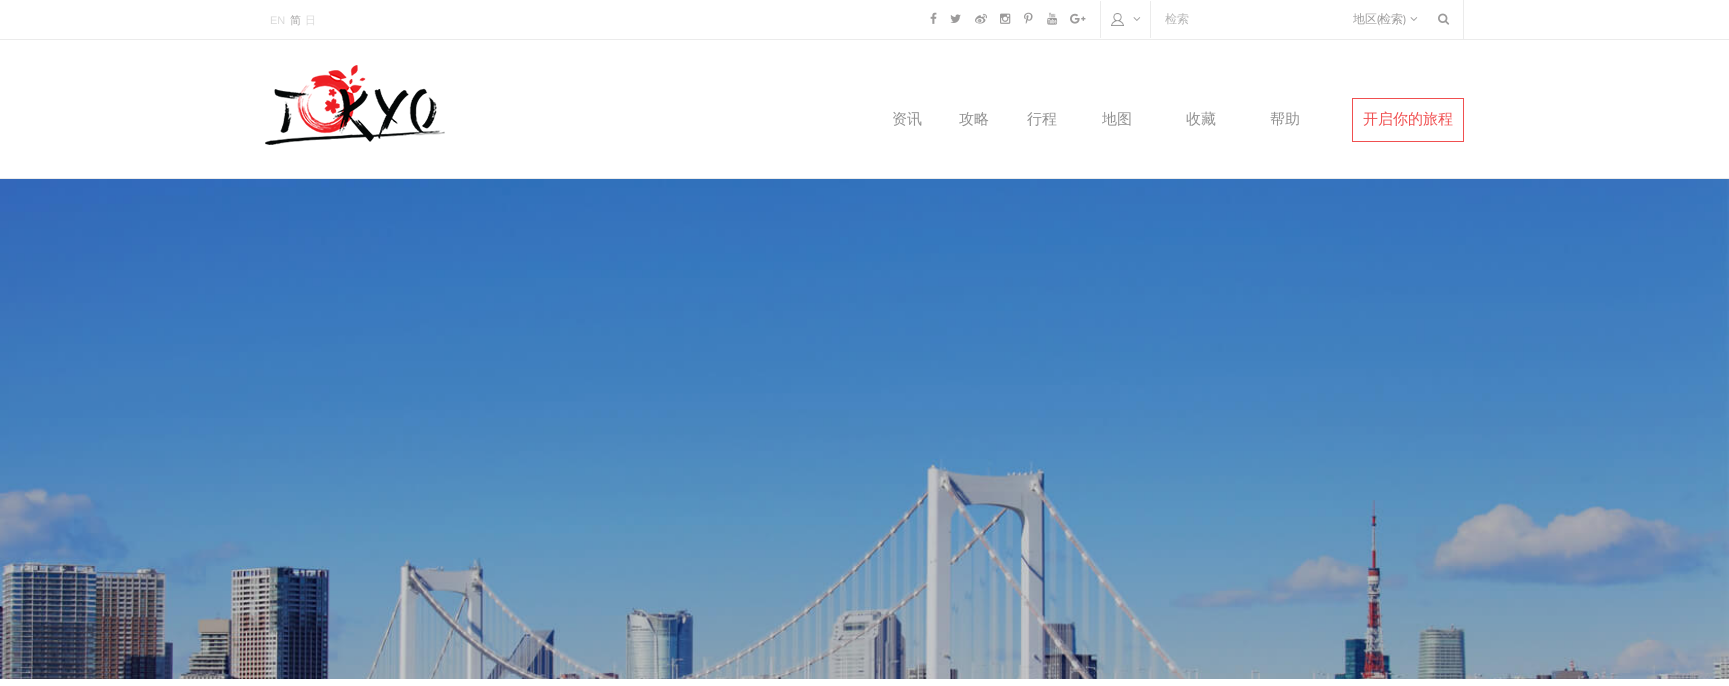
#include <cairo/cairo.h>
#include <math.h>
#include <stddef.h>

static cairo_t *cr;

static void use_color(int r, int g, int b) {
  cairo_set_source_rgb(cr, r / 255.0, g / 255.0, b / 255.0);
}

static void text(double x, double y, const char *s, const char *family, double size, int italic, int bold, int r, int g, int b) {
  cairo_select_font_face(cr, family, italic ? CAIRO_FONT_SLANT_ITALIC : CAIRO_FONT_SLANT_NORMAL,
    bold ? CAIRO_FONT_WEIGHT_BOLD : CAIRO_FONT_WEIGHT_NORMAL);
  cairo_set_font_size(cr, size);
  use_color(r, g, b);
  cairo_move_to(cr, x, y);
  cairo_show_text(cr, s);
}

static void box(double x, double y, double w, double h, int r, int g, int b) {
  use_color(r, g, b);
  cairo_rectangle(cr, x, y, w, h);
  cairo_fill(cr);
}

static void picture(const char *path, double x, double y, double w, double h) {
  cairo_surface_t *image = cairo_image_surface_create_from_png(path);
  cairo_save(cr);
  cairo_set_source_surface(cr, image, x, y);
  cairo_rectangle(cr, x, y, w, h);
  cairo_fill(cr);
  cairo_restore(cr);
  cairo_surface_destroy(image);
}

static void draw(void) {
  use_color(255, 255, 255);
  cairo_paint(cr);
  box(0, 178, 1729, 1, 235, 235, 235);
  box(0, 39, 1729, 1, 235, 235, 235);
  picture("img_01.png", 930, 12, 7, 12);
  picture("img_02.png", 950, 14, 11, 9);
  picture("img_03.png", 975, 13, 12, 11);
  picture("img_04.png", 1000, 13, 11, 11);
  picture("img_05.png", 1024, 12, 9, 12);
  picture("img_06.png", 1047, 12, 11, 13);
  picture("img_07.png", 1070, 13, 16, 11);
  box(1150, 1, 1, 37, 235, 235, 235);
  box(1100, 1, 1, 37, 235, 235, 235);
  picture("img_08.png", 1111, 13, 13, 13);
  picture("img_09.png", 1133, 17, 8, 4);
  box(1463, 0, 1, 39, 235, 235, 235);
  picture("img_09.png", 1410, 17, 8, 4);
  picture("img_10.png", 1438, 13, 12, 12);
  picture("img_11.png", 265, 65, 180, 80);
  cairo_rectangle(cr, 1352.5, 98.5, 111, 43);
  use_color(240, 79, 80);
  cairo_set_line_width(cr, 1);
  cairo_stroke(cr);
  picture("img_12.png", 0, 179, 1729, 500);
  text(270, 24, "EN", "Liberation Sans", 11, 0, 0, 217, 217, 217);
  text(290, 24, "简", "WenQuanYi Zen Hei Medium", 11, 0, 0, 163, 162, 162);
  text(305, 24, "日", "WenQuanYi Zen Hei Medium", 11, 0, 0, 217, 217, 217);
  text(1165, 23, "检索", "WenQuanYi Zen Hei Medium", 12, 0, 0, 180, 180, 180);
  text(1353, 23, "地区", "WenQuanYi Zen Hei Medium", 12, 0, 0, 156, 155, 155);
  text(1377, 23, "(", "Proxima Nova", 12, 0, 0, 156, 155, 155);
  text(1379, 23, "检索", "WenQuanYi Zen Hei Medium", 12, 0, 0, 156, 155, 155);
  text(1403, 23, ")", "Proxima Nova", 12, 0, 0, 156, 155, 155);
  text(892, 124, "资讯", "WenQuanYi Zen Hei Medium", 15, 0, 0, 145, 145, 145);
  text(959, 124, "攻略", "WenQuanYi Zen Hei Medium", 15, 0, 0, 145, 145, 145);
  text(1027, 124, "行程", "WenQuanYi Zen Hei Medium", 15, 0, 0, 145, 145, 145);
  text(1102, 124, "地图", "WenQuanYi Zen Hei Medium", 15, 0, 0, 145, 145, 145);
  text(1186, 124, "收藏", "WenQuanYi Zen Hei Medium", 15, 0, 0, 145, 145, 145);
  text(1270, 124, "帮助", "WenQuanYi Zen Hei Medium", 15, 0, 0, 145, 145, 145);
  text(1363, 124, "开启你的旅程", "WenQuanYi Zen Hei Medium", 15, 0, 0, 240, 79, 80);
}

int main(void) {
  cairo_surface_t *surface = cairo_image_surface_create(CAIRO_FORMAT_RGB24, 1729, 686);
  cr = cairo_create(surface);
  cairo_font_options_t *options = cairo_font_options_create();
  cairo_font_options_set_hint_metrics(options, CAIRO_HINT_METRICS_OFF);
  cairo_font_options_set_hint_style(options, CAIRO_HINT_STYLE_NONE);
  cairo_set_font_options(cr, options);
  cairo_set_miter_limit(cr, 4);
  draw();
  cairo_surface_write_to_png(surface, "out.png");
  cairo_font_options_destroy(options);
  cairo_destroy(cr);
  cairo_surface_destroy(surface);
  return 0;
}
